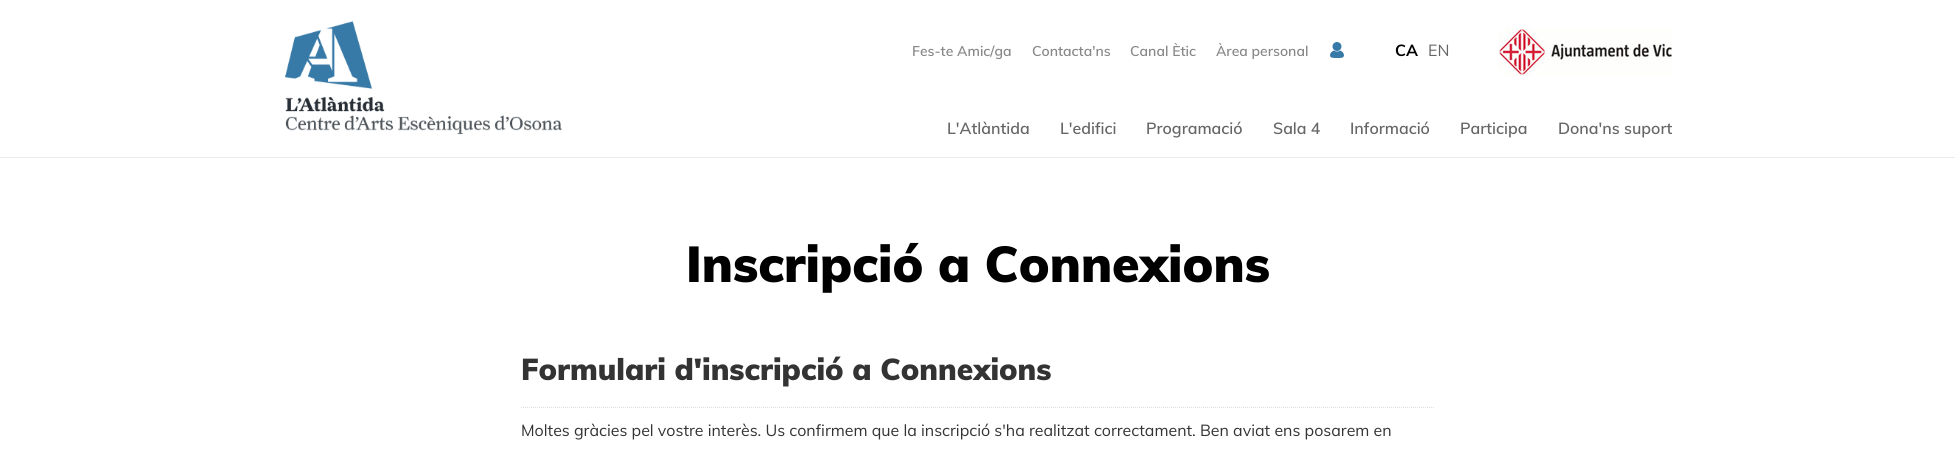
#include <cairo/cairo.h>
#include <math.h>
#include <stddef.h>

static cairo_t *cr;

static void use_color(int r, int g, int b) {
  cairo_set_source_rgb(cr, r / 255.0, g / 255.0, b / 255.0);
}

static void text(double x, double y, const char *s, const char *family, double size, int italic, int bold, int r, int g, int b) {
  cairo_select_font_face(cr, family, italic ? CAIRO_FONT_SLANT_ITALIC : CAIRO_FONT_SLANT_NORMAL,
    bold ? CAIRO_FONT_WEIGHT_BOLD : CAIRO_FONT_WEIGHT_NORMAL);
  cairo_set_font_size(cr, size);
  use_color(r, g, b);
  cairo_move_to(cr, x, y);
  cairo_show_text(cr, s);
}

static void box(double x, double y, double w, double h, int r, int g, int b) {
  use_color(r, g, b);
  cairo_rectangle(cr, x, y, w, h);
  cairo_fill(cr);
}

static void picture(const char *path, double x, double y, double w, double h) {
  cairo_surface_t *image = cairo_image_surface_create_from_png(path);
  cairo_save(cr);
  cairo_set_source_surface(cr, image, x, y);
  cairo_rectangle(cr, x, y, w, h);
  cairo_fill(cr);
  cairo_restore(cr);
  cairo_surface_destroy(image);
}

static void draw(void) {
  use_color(255, 255, 255);
  cairo_paint(cr);
  picture("img_01.png", 285, 21, 277, 114);
  picture("img_02.png", 1330, 42, 14, 16);
  picture("img_03.png", 1499, 28, 173, 48);
  box(0, 157, 1955, 1, 233, 233, 233);
  cairo_new_path(cr);
  cairo_move_to(cr, 521, 407.5);
  cairo_line_to(cr, 1434, 407.5);
  use_color(221, 221, 221);
  cairo_set_line_width(cr, 1);
  cairo_set_dash(cr, (double[]){1, 1}, 2, 0);
  cairo_stroke(cr);
  text(912, 56, "Fes-te Amic/ga", "Muli SemiBold", 14, 0, 0, 136, 136, 136);
  text(1032, 56, "Contacta'ns", "Muli SemiBold", 14, 0, 0, 136, 136, 136);
  text(1130, 56, "Canal Ètic", "Muli SemiBold", 14, 0, 0, 136, 136, 136);
  text(1216, 56, "Àrea personal", "Muli SemiBold", 14, 0, 0, 136, 136, 136);
  text(1395, 56, "CA", "Muli", 16, 0, 1, 0, 0, 0);
  text(1428, 56, "EN", "Muli", 16, 0, 0, 102, 102, 102);
  text(947, 134, "L'Atlàntida", "Muli SemiBold", 16, 0, 0, 102, 102, 102);
  text(1060, 134, "L'edifici", "Muli SemiBold", 16, 0, 0, 102, 102, 102);
  text(1146, 134, "Programació", "Muli SemiBold", 16, 0, 0, 102, 102, 102);
  text(1273, 134, "Sala 4", "Muli SemiBold", 16, 0, 0, 102, 102, 102);
  text(1350, 134, "Informació", "Muli SemiBold", 16, 0, 0, 102, 102, 102);
  text(1460, 134, "Participa", "Muli SemiBold", 16, 0, 0, 102, 102, 102);
  text(1558, 134, "Dona'ns suport", "Muli SemiBold", 16, 0, 0, 102, 102, 102);
  text(686, 282, "Inscripció a Connexions", "Muli Black", 50, 0, 0, 0, 0, 0);
  text(521, 380, "Formulari d'inscripció a Connexions", "Muli Black", 30, 0, 0, 51, 51, 51);
  text(521, 436, "Moltes gràcies pel vostre interès. Us confirmem que la inscripció s'ha realitzat correctament. Ben aviat ens posarem en", "Muli", 16, 0, 0, 51, 51, 51);
}

int main(void) {
  cairo_surface_t *surface = cairo_image_surface_create(CAIRO_FORMAT_RGB24, 1955, 449);
  cr = cairo_create(surface);
  cairo_font_options_t *options = cairo_font_options_create();
  cairo_font_options_set_hint_metrics(options, CAIRO_HINT_METRICS_OFF);
  cairo_font_options_set_hint_style(options, CAIRO_HINT_STYLE_NONE);
  cairo_set_font_options(cr, options);
  cairo_set_miter_limit(cr, 4);
  draw();
  cairo_surface_write_to_png(surface, "out.png");
  cairo_font_options_destroy(options);
  cairo_destroy(cr);
  cairo_surface_destroy(surface);
  return 0;
}
